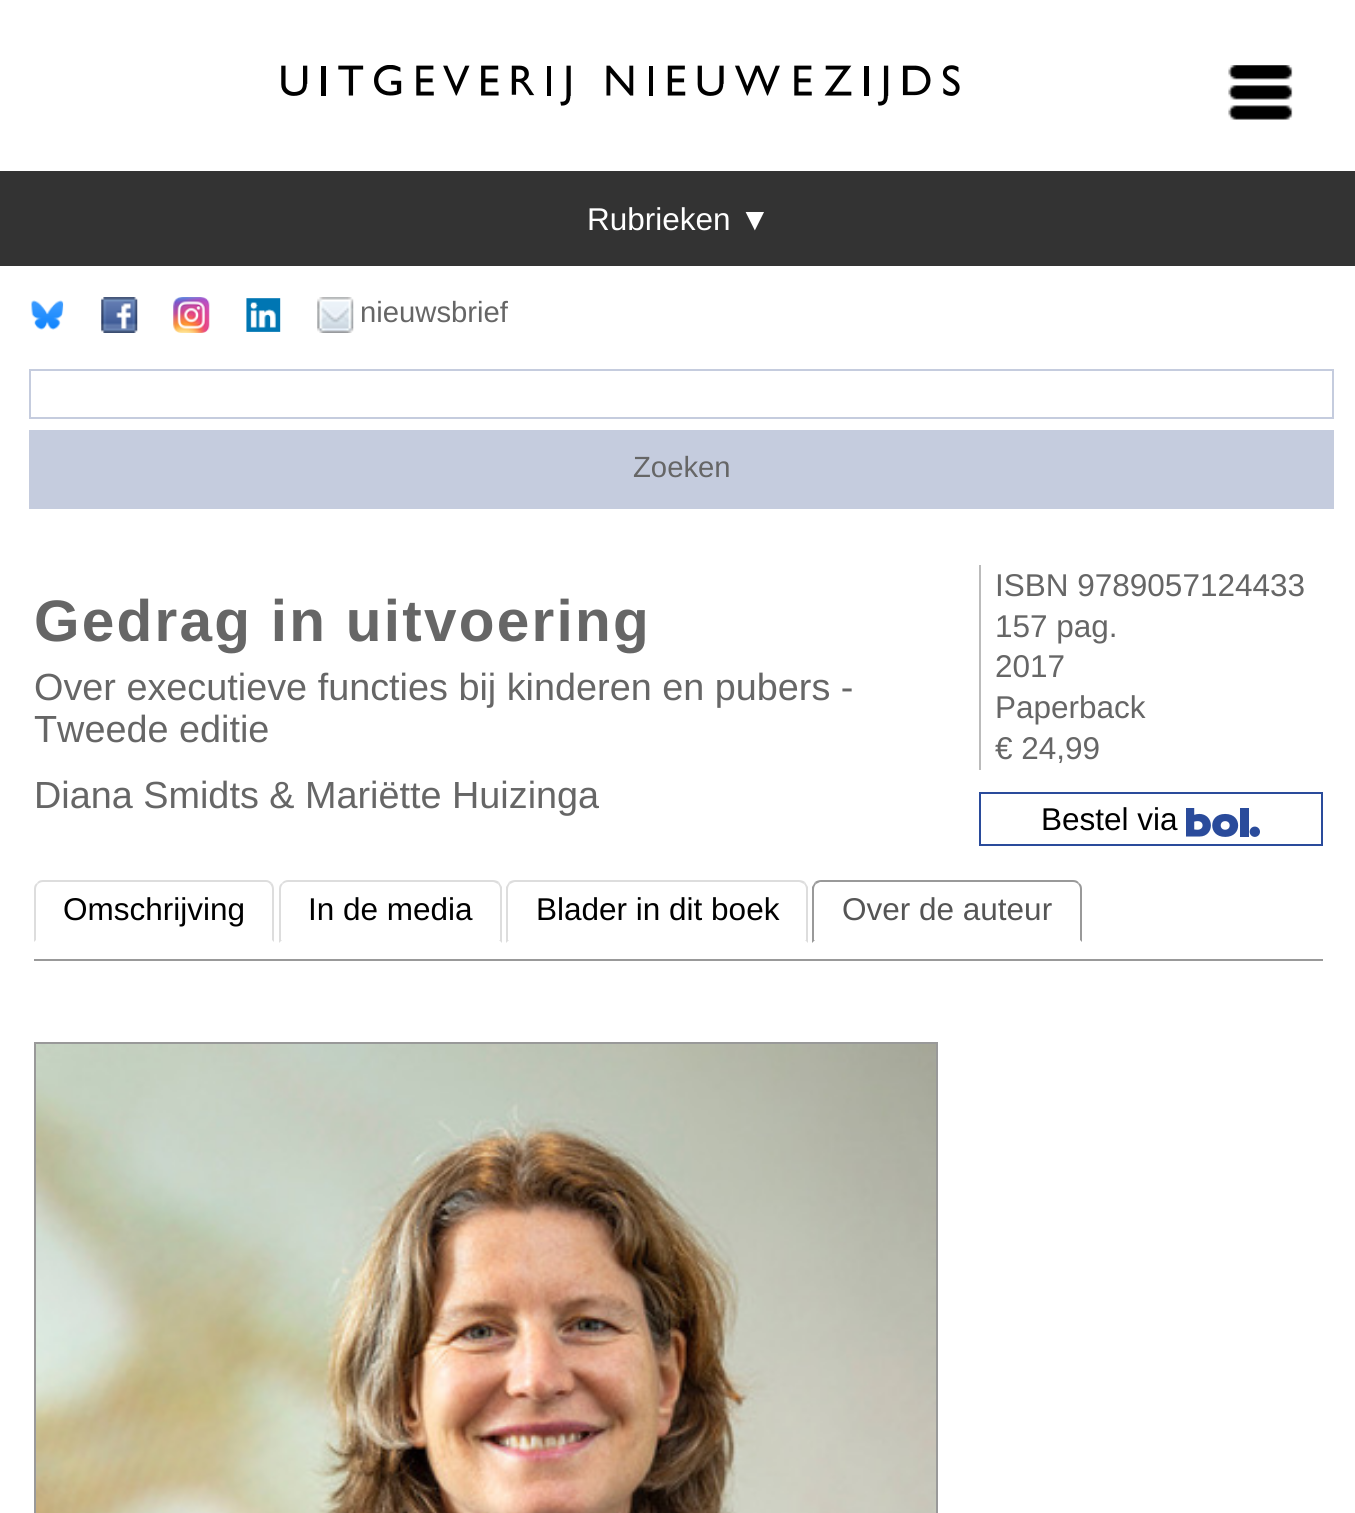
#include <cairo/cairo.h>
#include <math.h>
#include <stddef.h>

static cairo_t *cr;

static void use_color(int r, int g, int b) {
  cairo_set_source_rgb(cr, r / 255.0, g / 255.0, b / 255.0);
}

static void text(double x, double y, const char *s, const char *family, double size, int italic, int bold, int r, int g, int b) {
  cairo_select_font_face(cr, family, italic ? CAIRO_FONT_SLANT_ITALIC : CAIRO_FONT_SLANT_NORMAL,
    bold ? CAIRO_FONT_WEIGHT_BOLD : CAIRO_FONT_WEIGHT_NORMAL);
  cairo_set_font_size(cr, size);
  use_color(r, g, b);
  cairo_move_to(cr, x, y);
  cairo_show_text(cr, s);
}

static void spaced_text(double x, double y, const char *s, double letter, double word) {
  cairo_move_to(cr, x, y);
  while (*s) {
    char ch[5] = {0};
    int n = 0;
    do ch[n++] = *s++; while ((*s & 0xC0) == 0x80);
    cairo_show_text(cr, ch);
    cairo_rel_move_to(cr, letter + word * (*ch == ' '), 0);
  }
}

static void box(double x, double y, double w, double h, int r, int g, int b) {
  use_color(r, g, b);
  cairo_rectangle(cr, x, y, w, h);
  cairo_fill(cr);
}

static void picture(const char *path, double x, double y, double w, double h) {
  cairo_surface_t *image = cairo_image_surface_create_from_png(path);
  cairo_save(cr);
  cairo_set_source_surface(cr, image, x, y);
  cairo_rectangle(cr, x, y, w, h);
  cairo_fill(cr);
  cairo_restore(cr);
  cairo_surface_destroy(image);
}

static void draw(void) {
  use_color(255, 255, 255);
  cairo_paint(cr);
  picture("img_01.png", 281, 65, 679, 41);
  picture("img_02.png", 1228, 65, 65, 55);
  box(0, 171, 1355, 95, 51, 51, 51);
  picture("img_03.png", 31, 300, 33, 30);
  picture("img_04.png", 101, 297, 37, 36);
  picture("img_05.png", 173, 297, 37, 36);
  picture("img_06.png", 246, 298, 35, 34);
  picture("img_07.png", 317, 297, 37, 36);
  cairo_rectangle(cr, 30, 370, 1303, 48);
  use_color(197, 204, 222);
  cairo_stroke(cr);
  box(29, 430, 1305, 79, 197, 204, 222);
  box(979, 565, 2, 205, 187, 187, 187);
  cairo_rectangle(cr, 980, 793, 342, 52);
  use_color(42, 75, 155);
  cairo_stroke(cr);
  picture("img_08.png", 1186, 808, 74, 29);
  box(34, 959, 1289, 2, 153, 153, 153);
  use_color(221, 221, 221);
  cairo_new_path(cr);
  cairo_move_to(cr, 43, 880);
  cairo_curve_to(cr, 40, 880, 38, 881, 37, 883);
  cairo_line_to(cr, 38, 884);
  cairo_curve_to(cr, 39, 883, 41, 882, 43, 882);
  cairo_line_to(cr, 266, 882);
  cairo_curve_to(cr, 268, 882, 269, 883, 270, 884);
  cairo_line_to(cr, 272, 883);
  cairo_curve_to(cr, 270, 881, 268, 880, 266, 880);
  cairo_close_path(cr);
  cairo_fill(cr);
  cairo_new_path(cr);
  cairo_move_to(cr, 274, 942);
  cairo_line_to(cr, 274, 889);
  cairo_curve_to(cr, 274, 887, 273, 884, 272, 883);
  cairo_line_to(cr, 270, 884);
  cairo_curve_to(cr, 271, 885, 272, 887, 272, 889);
  cairo_line_to(cr, 272, 940);
  cairo_close_path(cr);
  cairo_fill(cr);
  cairo_new_path(cr);
  cairo_move_to(cr, 37, 883);
  cairo_curve_to(cr, 35, 884, 34, 886, 34, 889);
  cairo_line_to(cr, 34, 942);
  cairo_line_to(cr, 36, 940);
  cairo_line_to(cr, 36, 889);
  cairo_curve_to(cr, 36, 887, 37, 885, 38, 884);
  cairo_close_path(cr);
  cairo_fill(cr);
  cairo_new_path(cr);
  cairo_move_to(cr, 288, 880);
  cairo_curve_to(cr, 286, 880, 283, 881, 282, 883);
  cairo_line_to(cr, 283, 884);
  cairo_curve_to(cr, 284, 883, 286, 882, 288, 882);
  cairo_line_to(cr, 493, 882);
  cairo_curve_to(cr, 494, 882, 496, 883, 498, 884);
  cairo_line_to(cr, 499, 882);
  cairo_curve_to(cr, 498, 881, 495, 880, 493, 880);
  cairo_close_path(cr);
  cairo_fill(cr);
  cairo_new_path(cr);
  cairo_move_to(cr, 499, 882);
  cairo_curve_to(cr, 500, 884, 501, 885, 502, 887);
  cairo_line_to(cr, 502, 943);
  cairo_line_to(cr, 499, 940);
  cairo_line_to(cr, 500, 940);
  cairo_line_to(cr, 500, 889);
  cairo_curve_to(cr, 500, 887, 499, 885, 498, 884);
  cairo_close_path(cr);
  cairo_fill(cr);
  cairo_new_path(cr);
  cairo_move_to(cr, 279, 943);
  cairo_line_to(cr, 282, 940);
  cairo_line_to(cr, 281, 940);
  cairo_line_to(cr, 281, 889);
  cairo_curve_to(cr, 281, 887, 282, 885, 283, 884);
  cairo_line_to(cr, 282, 883);
  cairo_curve_to(cr, 280, 884, 279, 886, 279, 889);
  cairo_close_path(cr);
  cairo_fill(cr);
  cairo_new_path(cr);
  cairo_move_to(cr, 515, 880);
  cairo_curve_to(cr, 513, 880, 510, 881, 509, 882);
  cairo_line_to(cr, 510, 884);
  cairo_curve_to(cr, 512, 883, 514, 882, 515, 882);
  cairo_line_to(cr, 799, 882);
  cairo_curve_to(cr, 800, 882, 802, 883, 804, 884);
  cairo_line_to(cr, 805, 882);
  cairo_curve_to(cr, 804, 881, 801, 880, 799, 880);
  cairo_close_path(cr);
  cairo_fill(cr);
  cairo_new_path(cr);
  cairo_move_to(cr, 805, 882);
  cairo_curve_to(cr, 806, 884, 807, 885, 808, 887);
  cairo_line_to(cr, 808, 943);
  cairo_line_to(cr, 805, 940);
  cairo_line_to(cr, 806, 940);
  cairo_line_to(cr, 806, 889);
  cairo_curve_to(cr, 806, 887, 805, 885, 804, 884);
  cairo_close_path(cr);
  cairo_fill(cr);
  cairo_new_path(cr);
  cairo_move_to(cr, 506, 943);
  cairo_line_to(cr, 509, 940);
  cairo_line_to(cr, 508, 940);
  cairo_line_to(cr, 508, 889);
  cairo_curve_to(cr, 508, 887, 509, 885, 510, 884);
  cairo_line_to(cr, 509, 882);
  cairo_curve_to(cr, 508, 884, 507, 885, 506, 887);
  cairo_close_path(cr);
  cairo_fill(cr);
  use_color(153, 153, 153);
  cairo_new_path(cr);
  cairo_move_to(cr, 821, 880);
  cairo_curve_to(cr, 819, 880, 816, 881, 815, 882);
  cairo_line_to(cr, 816, 884);
  cairo_line_to(cr, 820, 882);
  cairo_line_to(cr, 1073, 882);
  cairo_curve_to(cr, 1075, 882, 1077, 883, 1078, 884);
  cairo_line_to(cr, 1079, 883);
  cairo_curve_to(cr, 1078, 881, 1076, 880, 1073, 880);
  cairo_close_path(cr);
  cairo_fill(cr);
  cairo_new_path(cr);
  cairo_move_to(cr, 1082, 942);
  cairo_line_to(cr, 1082, 889);
  cairo_curve_to(cr, 1082, 886, 1081, 884, 1079, 883);
  cairo_line_to(cr, 1078, 884);
  cairo_curve_to(cr, 1079, 885, 1080, 887, 1080, 889);
  cairo_line_to(cr, 1080, 940);
  cairo_close_path(cr);
  cairo_fill(cr);
  cairo_new_path(cr);
  cairo_move_to(cr, 812, 943);
  cairo_line_to(cr, 815, 940);
  cairo_line_to(cr, 814, 940);
  cairo_line_to(cr, 814, 889);
  cairo_curve_to(cr, 814, 887, 815, 885, 816, 884);
  cairo_line_to(cr, 815, 882);
  cairo_curve_to(cr, 814, 884, 813, 885, 812, 887);
  cairo_close_path(cr);
  cairo_fill(cr);
  cairo_rectangle(cr, 35, 1043, 902, 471);
  cairo_stroke(cr);
  picture("img_09.png", 36, 1044, 900, 469);
  text(587, 230, "Rubrieken ▼", "Liberation Sans", 31.5, 0, 0, 255, 255, 255);
  text(360, 322, "nieuwsbrief", "Liberation Sans", 29.25, 0, 0, 102, 102, 102);
  text(633, 477, "Zoeken", "Liberation Sans", 29.25, 0, 0, 102, 102, 102);
  cairo_select_font_face(cr, "Liberation Sans", CAIRO_FONT_SLANT_NORMAL, CAIRO_FONT_WEIGHT_BOLD);
  cairo_set_font_size(cr, 58.5);
  spaced_text(34, 641, "Gedrag in uitvoering", 2.25, 0);
  text(34, 700, "Over executieve functies bij kinderen en pubers -", "Liberation Sans", 37.8, 0, 0, 102, 102, 102);
  text(34, 742, "Tweede editie", "Liberation Sans", 37.8, 0, 0, 102, 102, 102);
  text(34, 808, "Diana Smidts & Mariëtte Huizinga", "Liberation Sans", 37.8, 0, 0, 102, 102, 102);
  text(995, 596, "ISBN 9789057124433", "Liberation Sans", 31.5, 0, 0, 102, 102, 102);
  text(995, 637, "157 pag.", "Liberation Sans", 31.5, 0, 0, 102, 102, 102);
  text(995, 677, "2017", "Liberation Sans", 31.5, 0, 0, 102, 102, 102);
  text(995, 718, "Paperback", "Liberation Sans", 31.5, 0, 0, 102, 102, 102);
  text(995, 759, "€ 24,99", "Liberation Sans", 31.5, 0, 0, 102, 102, 102);
  text(1041, 830, "Bestel via", "Liberation Sans", 31.5, 0, 0, 0, 0, 0);
  text(63, 920, "Omschrijving", "Liberation Sans", 31.5, 0, 0, 0, 0, 0);
  text(308, 920, "In de media", "Liberation Sans", 31.5, 0, 0, 0, 0, 0);
  text(536, 920, "Blader in dit boek", "Liberation Sans", 31.5, 0, 0, 0, 0, 0);
  text(842, 920, "Over de auteur", "Liberation Sans", 31.5, 0, 0, 85, 85, 85);
}

int main(void) {
  cairo_surface_t *surface = cairo_image_surface_create(CAIRO_FORMAT_RGB24, 1355, 1513);
  cr = cairo_create(surface);
  cairo_font_options_t *options = cairo_font_options_create();
  cairo_font_options_set_hint_metrics(options, CAIRO_HINT_METRICS_OFF);
  cairo_font_options_set_hint_style(options, CAIRO_HINT_STYLE_NONE);
  cairo_set_font_options(cr, options);
  cairo_set_miter_limit(cr, 4);
  draw();
  cairo_surface_write_to_png(surface, "out.png");
  cairo_font_options_destroy(options);
  cairo_destroy(cr);
  cairo_surface_destroy(surface);
  return 0;
}
